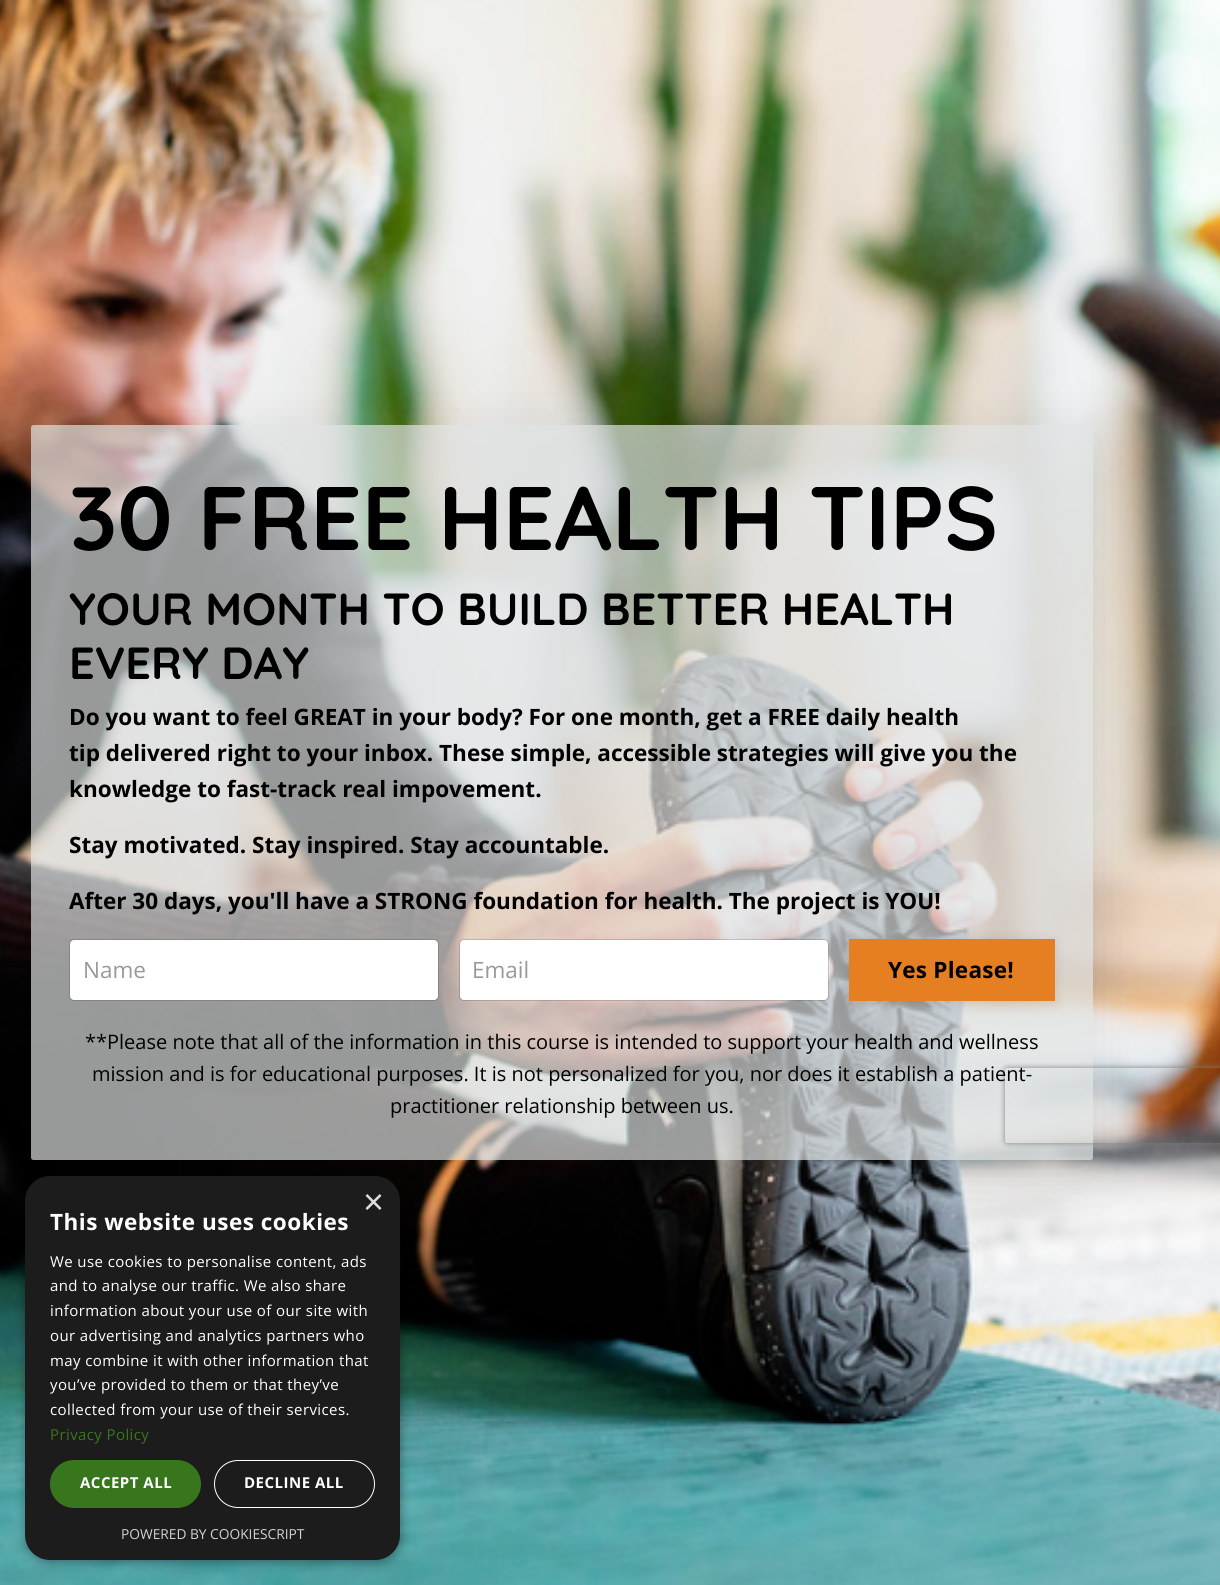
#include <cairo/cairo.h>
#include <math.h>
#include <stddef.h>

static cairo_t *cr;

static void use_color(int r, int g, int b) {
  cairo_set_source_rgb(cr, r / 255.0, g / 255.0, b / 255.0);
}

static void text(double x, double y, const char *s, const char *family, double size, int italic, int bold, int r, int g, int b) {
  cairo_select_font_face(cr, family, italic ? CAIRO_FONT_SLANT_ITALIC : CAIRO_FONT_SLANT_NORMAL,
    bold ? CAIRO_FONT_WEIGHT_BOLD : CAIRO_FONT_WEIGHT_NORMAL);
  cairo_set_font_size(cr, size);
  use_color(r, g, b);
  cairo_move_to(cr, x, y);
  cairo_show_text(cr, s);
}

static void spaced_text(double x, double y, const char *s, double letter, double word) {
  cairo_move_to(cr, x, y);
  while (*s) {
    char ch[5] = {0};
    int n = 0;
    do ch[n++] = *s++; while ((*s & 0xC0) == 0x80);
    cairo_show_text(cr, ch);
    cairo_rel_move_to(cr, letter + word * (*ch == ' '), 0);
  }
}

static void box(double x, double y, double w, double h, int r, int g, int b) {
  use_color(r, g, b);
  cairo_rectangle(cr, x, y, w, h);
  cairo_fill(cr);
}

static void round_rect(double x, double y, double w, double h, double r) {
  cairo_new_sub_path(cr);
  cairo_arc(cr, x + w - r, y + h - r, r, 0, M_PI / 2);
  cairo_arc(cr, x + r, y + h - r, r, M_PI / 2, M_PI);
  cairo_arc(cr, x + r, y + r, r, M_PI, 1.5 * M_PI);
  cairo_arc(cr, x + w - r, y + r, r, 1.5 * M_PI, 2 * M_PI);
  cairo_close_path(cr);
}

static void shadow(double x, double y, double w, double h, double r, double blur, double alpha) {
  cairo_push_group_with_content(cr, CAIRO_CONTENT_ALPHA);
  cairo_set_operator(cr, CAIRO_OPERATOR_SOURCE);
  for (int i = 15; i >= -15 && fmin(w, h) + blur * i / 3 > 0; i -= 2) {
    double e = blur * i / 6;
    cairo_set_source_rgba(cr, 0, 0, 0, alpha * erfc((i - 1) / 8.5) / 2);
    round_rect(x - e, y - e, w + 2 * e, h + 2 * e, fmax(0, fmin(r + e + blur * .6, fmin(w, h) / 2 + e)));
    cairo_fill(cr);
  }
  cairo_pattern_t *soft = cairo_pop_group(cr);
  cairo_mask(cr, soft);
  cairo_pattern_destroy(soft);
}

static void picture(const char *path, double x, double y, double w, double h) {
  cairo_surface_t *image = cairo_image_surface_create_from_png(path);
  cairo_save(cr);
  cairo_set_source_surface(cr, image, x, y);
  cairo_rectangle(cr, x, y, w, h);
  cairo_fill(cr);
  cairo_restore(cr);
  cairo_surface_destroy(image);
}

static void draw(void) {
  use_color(255, 255, 255);
  cairo_paint(cr);
  picture("img_01.png", 0, 0, 1220, 1585);
  cairo_save(cr);
  cairo_set_fill_rule(cr, CAIRO_FILL_RULE_EVEN_ODD);
  cairo_new_path(cr);
  cairo_move_to(cr, 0, 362);
  cairo_line_to(cr, 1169, 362);
  cairo_line_to(cr, 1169, 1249);
  cairo_line_to(cr, 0, 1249);
  cairo_close_path(cr);
  cairo_move_to(cr, 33.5, 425);
  cairo_line_to(cr, 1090.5, 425);
  cairo_curve_to(cr, 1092, 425, 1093, 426, 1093, 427.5);
  cairo_line_to(cr, 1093, 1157.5);
  cairo_curve_to(cr, 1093, 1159, 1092, 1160, 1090.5, 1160);
  cairo_line_to(cr, 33.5, 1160);
  cairo_curve_to(cr, 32, 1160, 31, 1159, 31, 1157.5);
  cairo_line_to(cr, 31, 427.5);
  cairo_curve_to(cr, 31, 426, 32, 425, 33.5, 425);
  cairo_close_path(cr);
  cairo_clip(cr);
  use_color(0, 0, 0);
  shadow(31, 438, 1062, 735, 2.5, 25, 0.1);
  cairo_restore(cr);
  cairo_set_source_rgba(cr, 0.875, 0.886, 0.886, 0.68);
  round_rect(31, 425, 1062, 735, 2.5);
  cairo_fill(cr);
  use_color(255, 255, 255);
  round_rect(70, 940, 368, 60, 4);
  cairo_fill(cr);
  round_rect(69.5, 939.5, 369, 61, 4.5);
  cairo_set_source_rgba(cr, 0, 0, 0, 0.15);
  cairo_set_line_width(cr, 1);
  cairo_stroke(cr);
  use_color(255, 255, 255);
  round_rect(460, 940, 368, 60, 4);
  cairo_fill(cr);
  round_rect(459.5, 939.5, 369, 61, 4.5);
  cairo_set_source_rgba(cr, 0, 0, 0, 0.15);
  cairo_stroke(cr);
  use_color(0, 0, 0);
  shadow(849, 941, 206, 63, 0, 6, 0.1);
  box(849, 939, 206, 62, 230, 126, 34);
  cairo_save(cr);
  cairo_set_fill_rule(cr, CAIRO_FILL_RULE_EVEN_ODD);
  cairo_new_path(cr);
  cairo_move_to(cr, 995, 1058);
  cairo_line_to(cr, 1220, 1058);
  cairo_line_to(cr, 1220, 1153);
  cairo_line_to(cr, 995, 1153);
  cairo_close_path(cr);
  cairo_move_to(cr, 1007.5, 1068);
  cairo_line_to(cr, 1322.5, 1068);
  cairo_curve_to(cr, 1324, 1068, 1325, 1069, 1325, 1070.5);
  cairo_line_to(cr, 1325, 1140.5);
  cairo_curve_to(cr, 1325, 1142, 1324, 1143, 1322.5, 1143);
  cairo_line_to(cr, 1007.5, 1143);
  cairo_curve_to(cr, 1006, 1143, 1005, 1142, 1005, 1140.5);
  cairo_line_to(cr, 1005, 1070.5);
  cairo_curve_to(cr, 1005, 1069, 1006, 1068, 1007.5, 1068);
  cairo_close_path(cr);
  cairo_clip(cr);
  use_color(128, 128, 128);
  shadow(1005, 1068, 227, 75, 2.5, 3, 1);
  cairo_restore(cr);
  use_color(0, 0, 0);
  shadow(26, 1179, 375, 384, 25, 5, 0.35);
  use_color(28, 28, 28);
  round_rect(25, 1176, 375, 384, 25);
  cairo_fill(cr);
  use_color(56, 118, 29);
  round_rect(50, 1460, 151, 48, 24);
  cairo_fill(cr);
  round_rect(214.5, 1460.5, 160, 47, 23.5);
  use_color(255, 255, 255);
  cairo_stroke(cr);
  text(69, 550, "30 FREE HEALTH TIPS", "Quicksand", 90, 0, 1, 0, 0, 0);
  text(69, 625, "YOUR MONTH TO BUILD BETTER HEALTH", "Quicksand", 45, 0, 1, 0, 0, 0);
  text(69, 679, "EVERY DAY", "Quicksand", 45, 0, 1, 0, 0, 0);
  text(69, 725, "Do you want to feel GREAT in your body? For one month, get a FREE daily health", "Open Sans", 22.5, 0, 1, 0, 0, 0);
  text(69, 761, "tip delivered right to your inbox. These simple, accessible strategies will give you the", "Open Sans", 22.5, 0, 1, 0, 0, 0);
  text(69, 797, "knowledge to fast-track real impovement.", "Open Sans", 22.5, 0, 1, 0, 0, 0);
  text(69, 853, "Stay motivated. Stay inspired. Stay accountable.", "Open Sans", 22.5, 0, 1, 0, 0, 0);
  text(69, 909, "After 30 days, you'll have a STRONG foundation for health. The project is YOU!", "Open Sans", 22.5, 0, 1, 0, 0, 0);
  text(83, 978, "Name", "Open Sans", 22.5, 0, 0, 153, 153, 153);
  text(472, 978, "Email", "Open Sans", 22.5, 0, 0, 153, 153, 153);
  cairo_select_font_face(cr, "Open Sans", CAIRO_FONT_SLANT_NORMAL, CAIRO_FONT_WEIGHT_BOLD);
  use_color(0, 0, 0);
  spaced_text(888, 978, "Yes Please!", 0.25, 0);
  text(85, 1049, "**Please note that all of the information in this course is intended to support your health and wellness", "Open Sans", 20, 0, 0, 0, 0, 0);
  text(92, 1081, "mission and is for educational purposes. It is not personalized for you, nor does it establish a patient-", "Open Sans", 20, 0, 0, 0, 0, 0);
  text(390, 1113, "practitioner relationship between us.", "Open Sans", 20, 0, 0, 0, 0, 0);
  text(363, 1214, "×", "Liberation Sans", 36, 0, 0, 221, 221, 221);
  cairo_select_font_face(cr, "Open Sans", CAIRO_FONT_SLANT_NORMAL, CAIRO_FONT_WEIGHT_BOLD);
  cairo_set_font_size(cr, 22.5);
  use_color(255, 255, 255);
  spaced_text(50, 1230, "This website uses cookies", 0.5, 0);
  cairo_select_font_face(cr, "Open Sans", CAIRO_FONT_SLANT_NORMAL, CAIRO_FONT_WEIGHT_NORMAL);
  cairo_set_font_size(cr, 15);
  spaced_text(50, 1267, "We use cookies to personalise content, ads", 0.4, 0);
  spaced_text(50, 1291, "and to analyse our traffic. We also share", 0.4, 0);
  spaced_text(50, 1316, "information about your use of our site with", 0.4, 0);
  spaced_text(50, 1341, "our advertising and analytics partners who", 0.4, 0);
  spaced_text(50, 1366, "may combine it with other information that", 0.4, 0);
  spaced_text(50, 1390, "you’ve provided to them or that they’ve", 0.4, 0);
  spaced_text(50, 1415, "collected from your use of their services.", 0.4, 0);
  use_color(56, 118, 29);
  spaced_text(50, 1440, "Privacy Policy", 0.4, 0);
  cairo_select_font_face(cr, "Open Sans", CAIRO_FONT_SLANT_NORMAL, CAIRO_FONT_WEIGHT_BOLD);
  use_color(255, 255, 255);
  spaced_text(80, 1488, "ACCEPT ALL", 0.5, 0);
  spaced_text(244, 1488, "DECLINE ALL", 0.5, 0);
  text(121, 1539, "POWERED BY COOKIESCRIPT", "Open Sans", 13.75, 0, 0, 210, 210, 210);
}

int main(void) {
  cairo_surface_t *surface = cairo_image_surface_create(CAIRO_FORMAT_RGB24, 1220, 1585);
  cr = cairo_create(surface);
  cairo_font_options_t *options = cairo_font_options_create();
  cairo_font_options_set_hint_metrics(options, CAIRO_HINT_METRICS_OFF);
  cairo_font_options_set_hint_style(options, CAIRO_HINT_STYLE_NONE);
  cairo_set_font_options(cr, options);
  cairo_set_miter_limit(cr, 4);
  draw();
  cairo_surface_write_to_png(surface, "out.png");
  cairo_font_options_destroy(options);
  cairo_destroy(cr);
  cairo_surface_destroy(surface);
  return 0;
}
